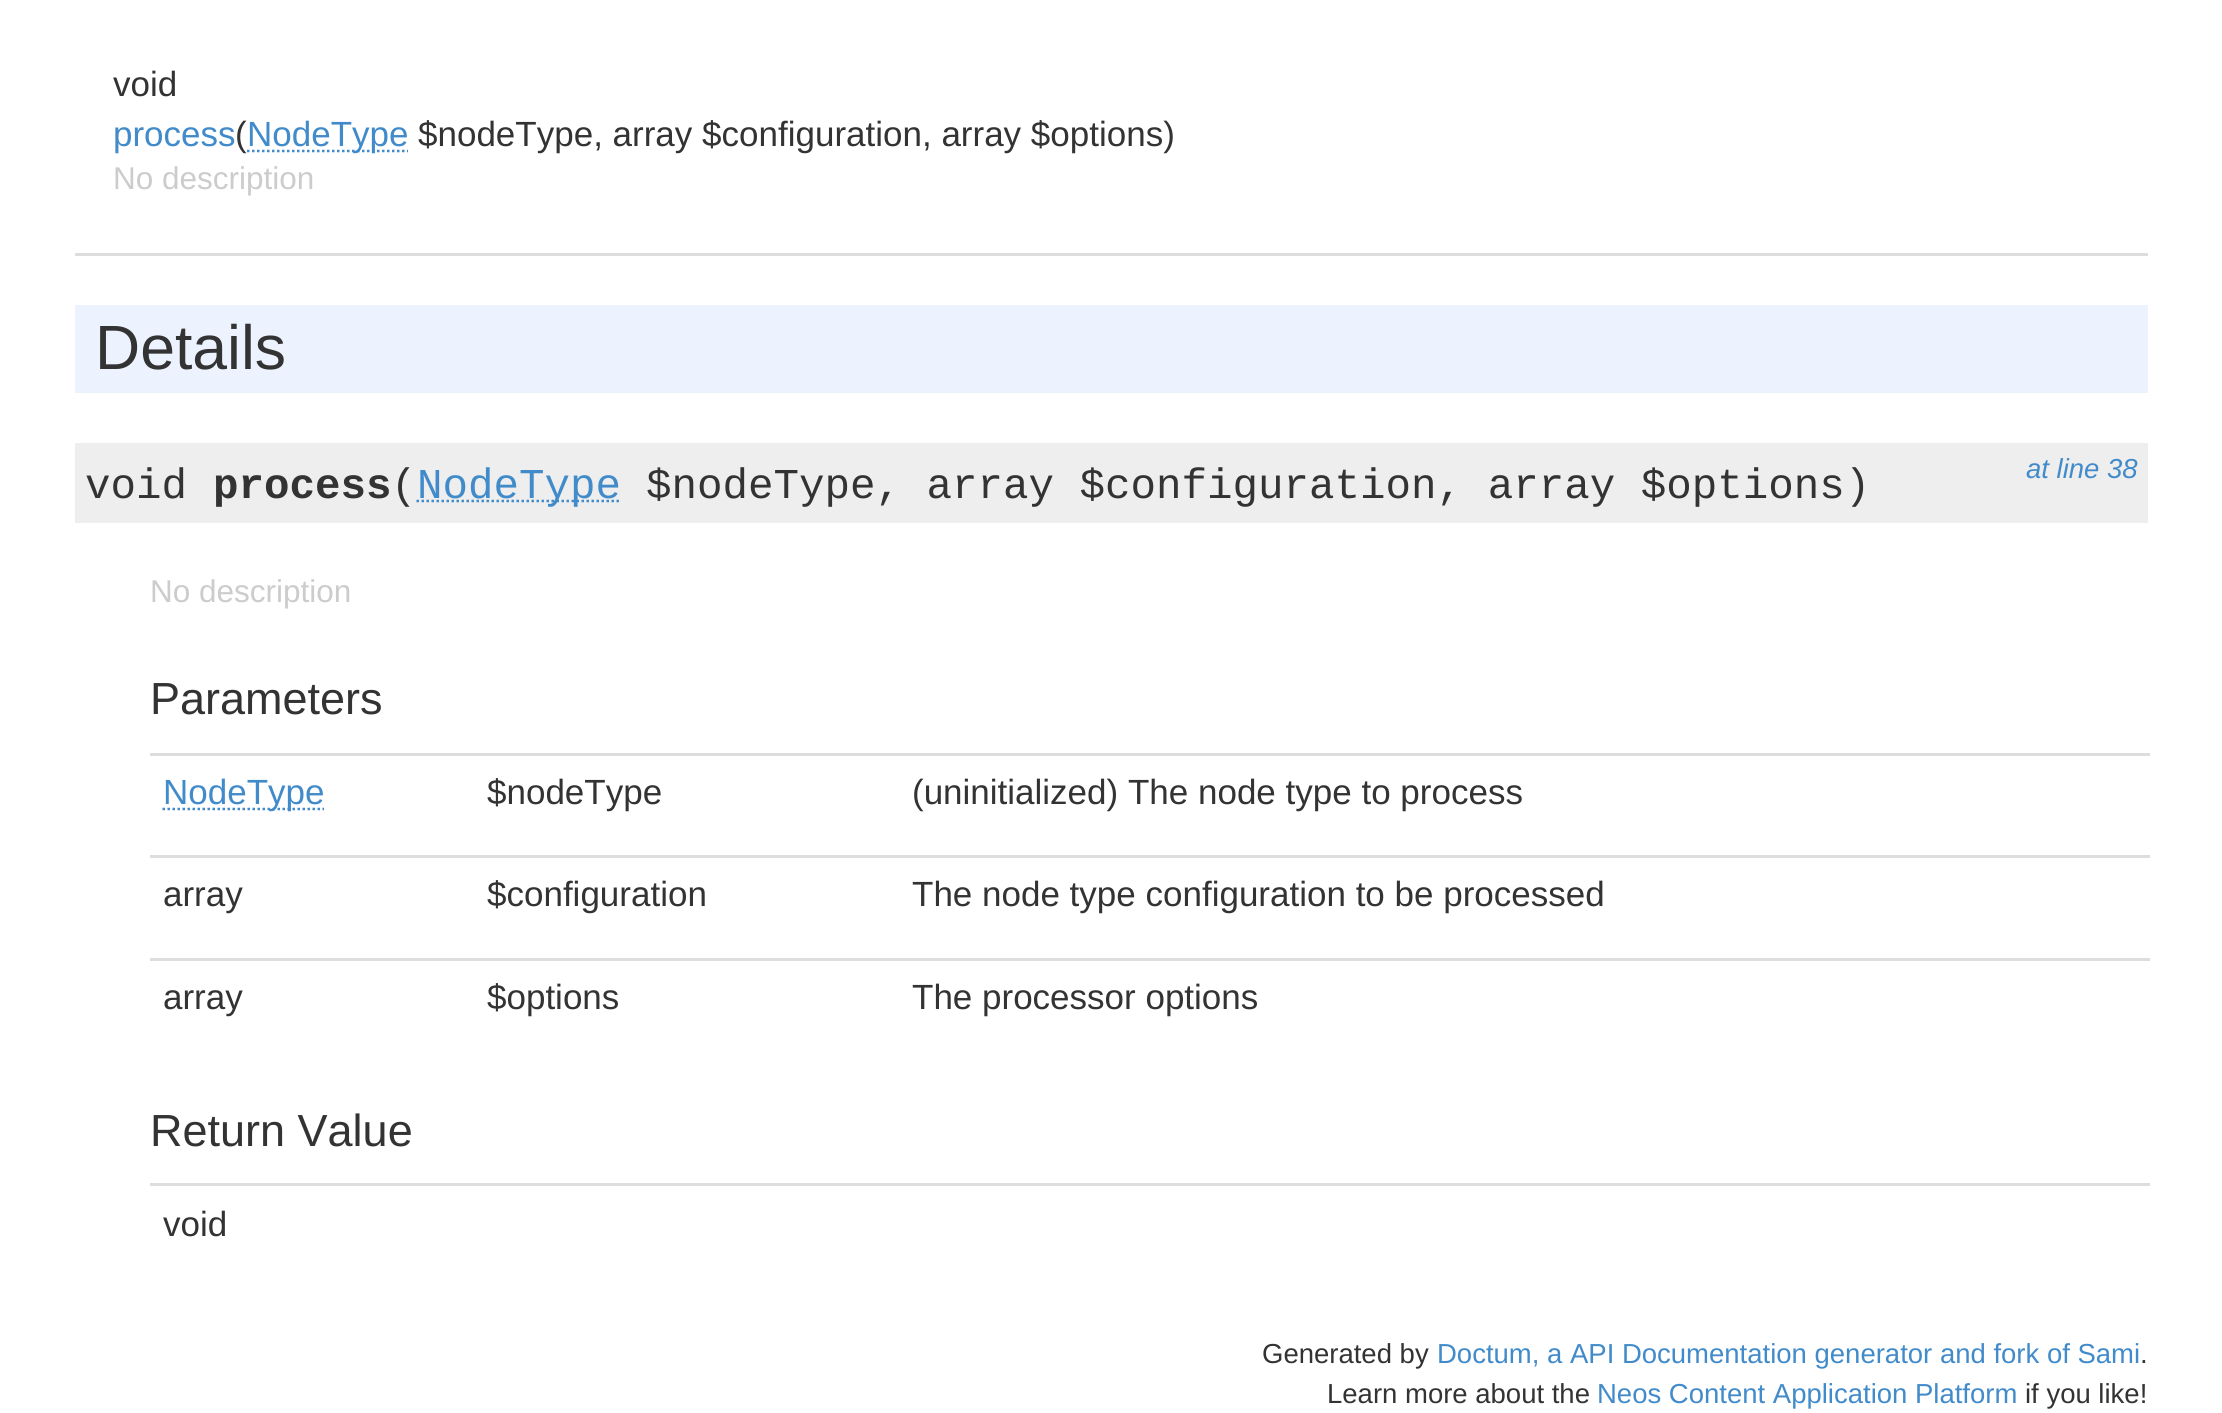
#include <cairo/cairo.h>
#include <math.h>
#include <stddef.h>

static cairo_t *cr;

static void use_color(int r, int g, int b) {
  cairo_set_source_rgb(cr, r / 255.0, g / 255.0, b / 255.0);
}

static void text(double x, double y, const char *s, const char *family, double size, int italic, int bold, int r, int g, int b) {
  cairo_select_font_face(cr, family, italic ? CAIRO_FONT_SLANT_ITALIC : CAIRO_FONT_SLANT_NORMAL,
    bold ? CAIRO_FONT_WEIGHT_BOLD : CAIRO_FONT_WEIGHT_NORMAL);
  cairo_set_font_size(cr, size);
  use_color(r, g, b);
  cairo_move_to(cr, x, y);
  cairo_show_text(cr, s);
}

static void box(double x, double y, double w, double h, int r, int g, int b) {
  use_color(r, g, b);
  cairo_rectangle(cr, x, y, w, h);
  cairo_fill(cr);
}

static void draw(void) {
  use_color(255, 255, 255);
  cairo_paint(cr);
  box(75, 253, 2073, 3, 221, 221, 221);
  cairo_new_path(cr);
  cairo_move_to(cr, 247, 151);
  cairo_line_to(cr, 408, 151);
  use_color(66, 139, 202);
  cairo_set_line_width(cr, 2.5);
  cairo_set_dash(cr, (double[]){2.5, 2.5}, 2, 0);
  cairo_stroke(cr);
  box(75, 305, 2073, 88, 237, 243, 254);
  box(75, 443, 2073, 80, 238, 238, 238);
  cairo_new_path(cr);
  cairo_move_to(cr, 416.5, 501);
  cairo_line_to(cr, 620.5, 501);
  use_color(66, 139, 202);
  cairo_stroke(cr);
  cairo_new_path(cr);
  cairo_move_to(cr, 162.5, 809);
  cairo_line_to(cr, 324, 809);
  cairo_stroke(cr);
  box(150, 753, 2000, 3, 221, 221, 221);
  box(150, 855, 2000, 3, 221, 221, 221);
  box(150, 958, 2000, 3, 221, 221, 221);
  box(150, 1183, 2000, 3, 221, 221, 221);
  text(113, 96, "void", "Liberation Sans", 35, 0, 0, 51, 51, 51);
  text(113, 146, "process", "Liberation Sans", 35, 0, 0, 66, 139, 202);
  text(235, 146, "(", "Liberation Sans", 35, 0, 0, 51, 51, 51);
  text(247, 146, "NodeType", "Liberation Sans", 35, 0, 0, 66, 139, 202);
  text(418, 146, "$nodeType, array $configuration, array $options)", "Liberation Sans", 35, 0, 0, 51, 51, 51);
  text(113, 189, "No description", "Liberation Sans", 31.5, 0, 0, 204, 204, 204);
  text(95, 369, "Details", "Liberation Sans", 62.5, 0, 0, 51, 51, 51);
  text(85, 498, "void", "Liberation Mono", 42.5, 0, 0, 51, 51, 51);
  text(213, 498, "process", "Liberation Mono", 42.5, 0, 1, 51, 51, 51);
  text(391, 498, "(", "Liberation Mono", 42.5, 0, 0, 51, 51, 51);
  text(417, 498, "NodeType", "Liberation Mono", 42.5, 0, 0, 66, 139, 202);
  text(646, 498, "$nodeType, array $configuration, array $options)", "Liberation Mono", 42.5, 0, 0, 51, 51, 51);
  text(2026, 478, "at line 38", "Liberation Sans", 27.5, 1, 0, 66, 139, 202);
  text(150, 602, "No description", "Liberation Sans", 31.5, 0, 0, 204, 204, 204);
  text(150, 714, "Parameters", "Liberation Sans", 45, 0, 0, 51, 51, 51);
  text(163, 804, "NodeType", "Liberation Sans", 35, 0, 0, 66, 139, 202);
  text(487, 804, "$nodeType", "Liberation Sans", 35, 0, 0, 51, 51, 51);
  text(912, 804, "(uninitialized) The node type to process", "Liberation Sans", 35, 0, 0, 51, 51, 51);
  text(163, 906, "array", "Liberation Sans", 35, 0, 0, 51, 51, 51);
  text(487, 906, "$configuration", "Liberation Sans", 35, 0, 0, 51, 51, 51);
  text(912, 906, "The node type configuration to be processed", "Liberation Sans", 35, 0, 0, 51, 51, 51);
  text(163, 1009, "array", "Liberation Sans", 35, 0, 0, 51, 51, 51);
  text(487, 1009, "$options", "Liberation Sans", 35, 0, 0, 51, 51, 51);
  text(912, 1009, "The processor options", "Liberation Sans", 35, 0, 0, 51, 51, 51);
  text(150, 1146, "Return Value", "Liberation Sans", 45, 0, 0, 51, 51, 51);
  text(163, 1236, "void", "Liberation Sans", 35, 0, 0, 51, 51, 51);
  text(1262, 1363, "Generated by", "Liberation Sans", 27.5, 0, 0, 51, 51, 51);
  text(1437, 1363, "Doctum, a API Documentation generator and fork of Sami", "Liberation Sans", 27.5, 0, 0, 66, 139, 202);
  text(2140, 1363, ".", "Liberation Sans", 27.5, 0, 0, 51, 51, 51);
  text(1327, 1403, "Learn more about the", "Liberation Sans", 27.5, 0, 0, 51, 51, 51);
  text(1597, 1403, "Neos Content Application Platform", "Liberation Sans", 27.5, 0, 0, 66, 139, 202);
  text(2025, 1403, "if you like!", "Liberation Sans", 27.5, 0, 0, 51, 51, 51);
}

int main(void) {
  cairo_surface_t *surface = cairo_image_surface_create(CAIRO_FORMAT_RGB24, 2222, 1413);
  cr = cairo_create(surface);
  cairo_font_options_t *options = cairo_font_options_create();
  cairo_font_options_set_hint_metrics(options, CAIRO_HINT_METRICS_OFF);
  cairo_font_options_set_hint_style(options, CAIRO_HINT_STYLE_NONE);
  cairo_set_font_options(cr, options);
  cairo_set_miter_limit(cr, 4);
  draw();
  cairo_surface_write_to_png(surface, "out.png");
  cairo_font_options_destroy(options);
  cairo_destroy(cr);
  cairo_surface_destroy(surface);
  return 0;
}
